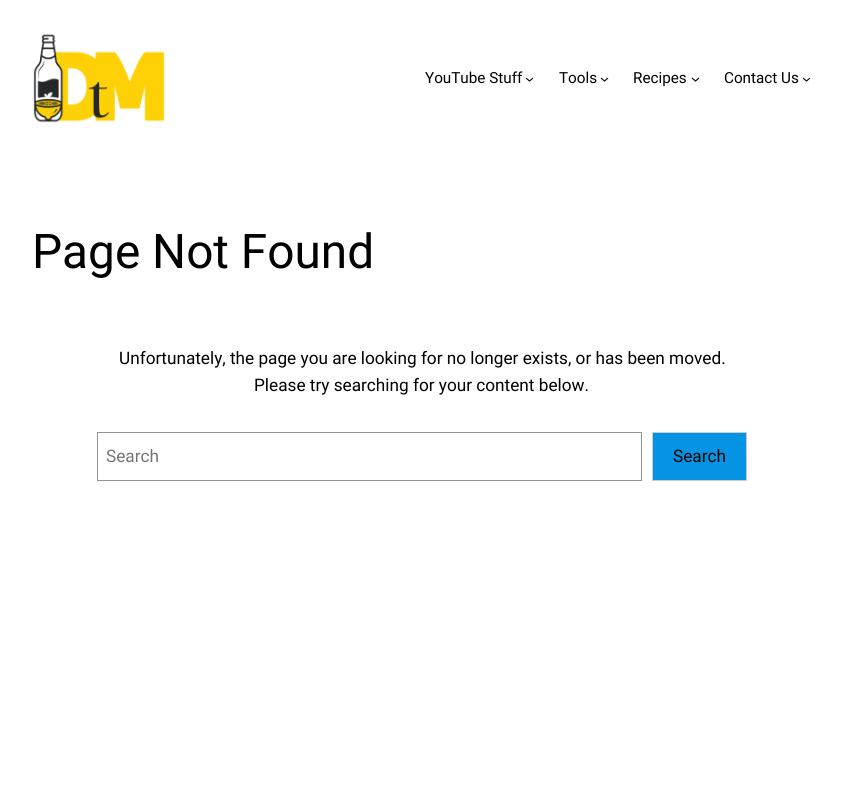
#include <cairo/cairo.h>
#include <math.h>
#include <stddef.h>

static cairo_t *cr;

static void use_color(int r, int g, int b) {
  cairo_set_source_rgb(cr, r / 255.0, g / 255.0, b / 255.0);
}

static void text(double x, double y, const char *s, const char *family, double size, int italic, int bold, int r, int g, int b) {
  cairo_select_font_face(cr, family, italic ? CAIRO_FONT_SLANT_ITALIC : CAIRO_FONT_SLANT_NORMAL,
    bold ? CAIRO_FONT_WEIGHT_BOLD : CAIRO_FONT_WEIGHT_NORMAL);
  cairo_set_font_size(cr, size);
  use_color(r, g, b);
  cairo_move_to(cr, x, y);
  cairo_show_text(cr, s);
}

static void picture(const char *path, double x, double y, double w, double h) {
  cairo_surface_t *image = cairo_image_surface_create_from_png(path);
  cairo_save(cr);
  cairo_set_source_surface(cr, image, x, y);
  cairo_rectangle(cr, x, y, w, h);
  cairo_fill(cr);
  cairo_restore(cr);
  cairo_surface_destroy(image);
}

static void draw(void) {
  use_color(255, 255, 255);
  cairo_paint(cr);
  picture("img_01.png", 33, 34, 132, 89);
  cairo_new_path(cr);
  cairo_move_to(cr, 526, 78);
  cairo_line_to(cr, 529.5, 81);
  cairo_line_to(cr, 533, 78);
  use_color(0, 0, 0);
  cairo_set_line_width(cr, 1.1);
  cairo_stroke(cr);
  cairo_new_path(cr);
  cairo_move_to(cr, 601, 78);
  cairo_line_to(cr, 604.5, 81);
  cairo_line_to(cr, 608, 78);
  cairo_stroke(cr);
  cairo_new_path(cr);
  cairo_move_to(cr, 692, 78);
  cairo_line_to(cr, 695.5, 81);
  cairo_line_to(cr, 699, 78);
  cairo_stroke(cr);
  cairo_new_path(cr);
  cairo_move_to(cr, 803, 78);
  cairo_line_to(cr, 806.5, 81);
  cairo_line_to(cr, 810, 78);
  cairo_stroke(cr);
  cairo_rectangle(cr, 97.5, 432.5, 544, 48);
  use_color(148, 148, 148);
  cairo_set_line_width(cr, 1);
  cairo_stroke(cr);
  use_color(6, 147, 227);
  cairo_rectangle(cr, 652.5, 432.5, 94, 48);
  cairo_fill_preserve(cr);
  use_color(204, 204, 204);
  cairo_stroke(cr);
  text(425, 83, "YouTube Stuff", "Roboto", 15.25, 0, 0, 0, 0, 0);
  text(559, 83, "Tools", "Roboto", 15.25, 0, 0, 0, 0, 0);
  text(633, 83, "Recipes", "Roboto", 15.25, 0, 0, 0, 0, 0);
  text(724, 83, "Contact Us", "Roboto", 15.25, 0, 0, 0, 0, 0);
  text(32, 268, "Page Not Found", "Roboto", 47.75, 0, 0, 0, 0, 0);
  text(119, 364, "Unfortunately, the page you are looking for no longer exists, or has been moved.", "Roboto", 17.2, 0, 0, 0, 0, 0);
  text(254, 391, "Please try searching for your content below.", "Roboto", 17.2, 0, 0, 0, 0, 0);
  text(106, 462, "Search", "Roboto", 17.2, 0, 0, 117, 117, 117);
  text(673, 462, "Search", "Roboto", 17.2, 0, 0, 0, 0, 0);
}

int main(void) {
  cairo_surface_t *surface = cairo_image_surface_create(CAIRO_FORMAT_RGB24, 843, 796);
  cr = cairo_create(surface);
  cairo_font_options_t *options = cairo_font_options_create();
  cairo_font_options_set_hint_metrics(options, CAIRO_HINT_METRICS_OFF);
  cairo_font_options_set_hint_style(options, CAIRO_HINT_STYLE_NONE);
  cairo_set_font_options(cr, options);
  cairo_set_miter_limit(cr, 4);
  draw();
  cairo_surface_write_to_png(surface, "out.png");
  cairo_font_options_destroy(options);
  cairo_destroy(cr);
  cairo_surface_destroy(surface);
  return 0;
}
